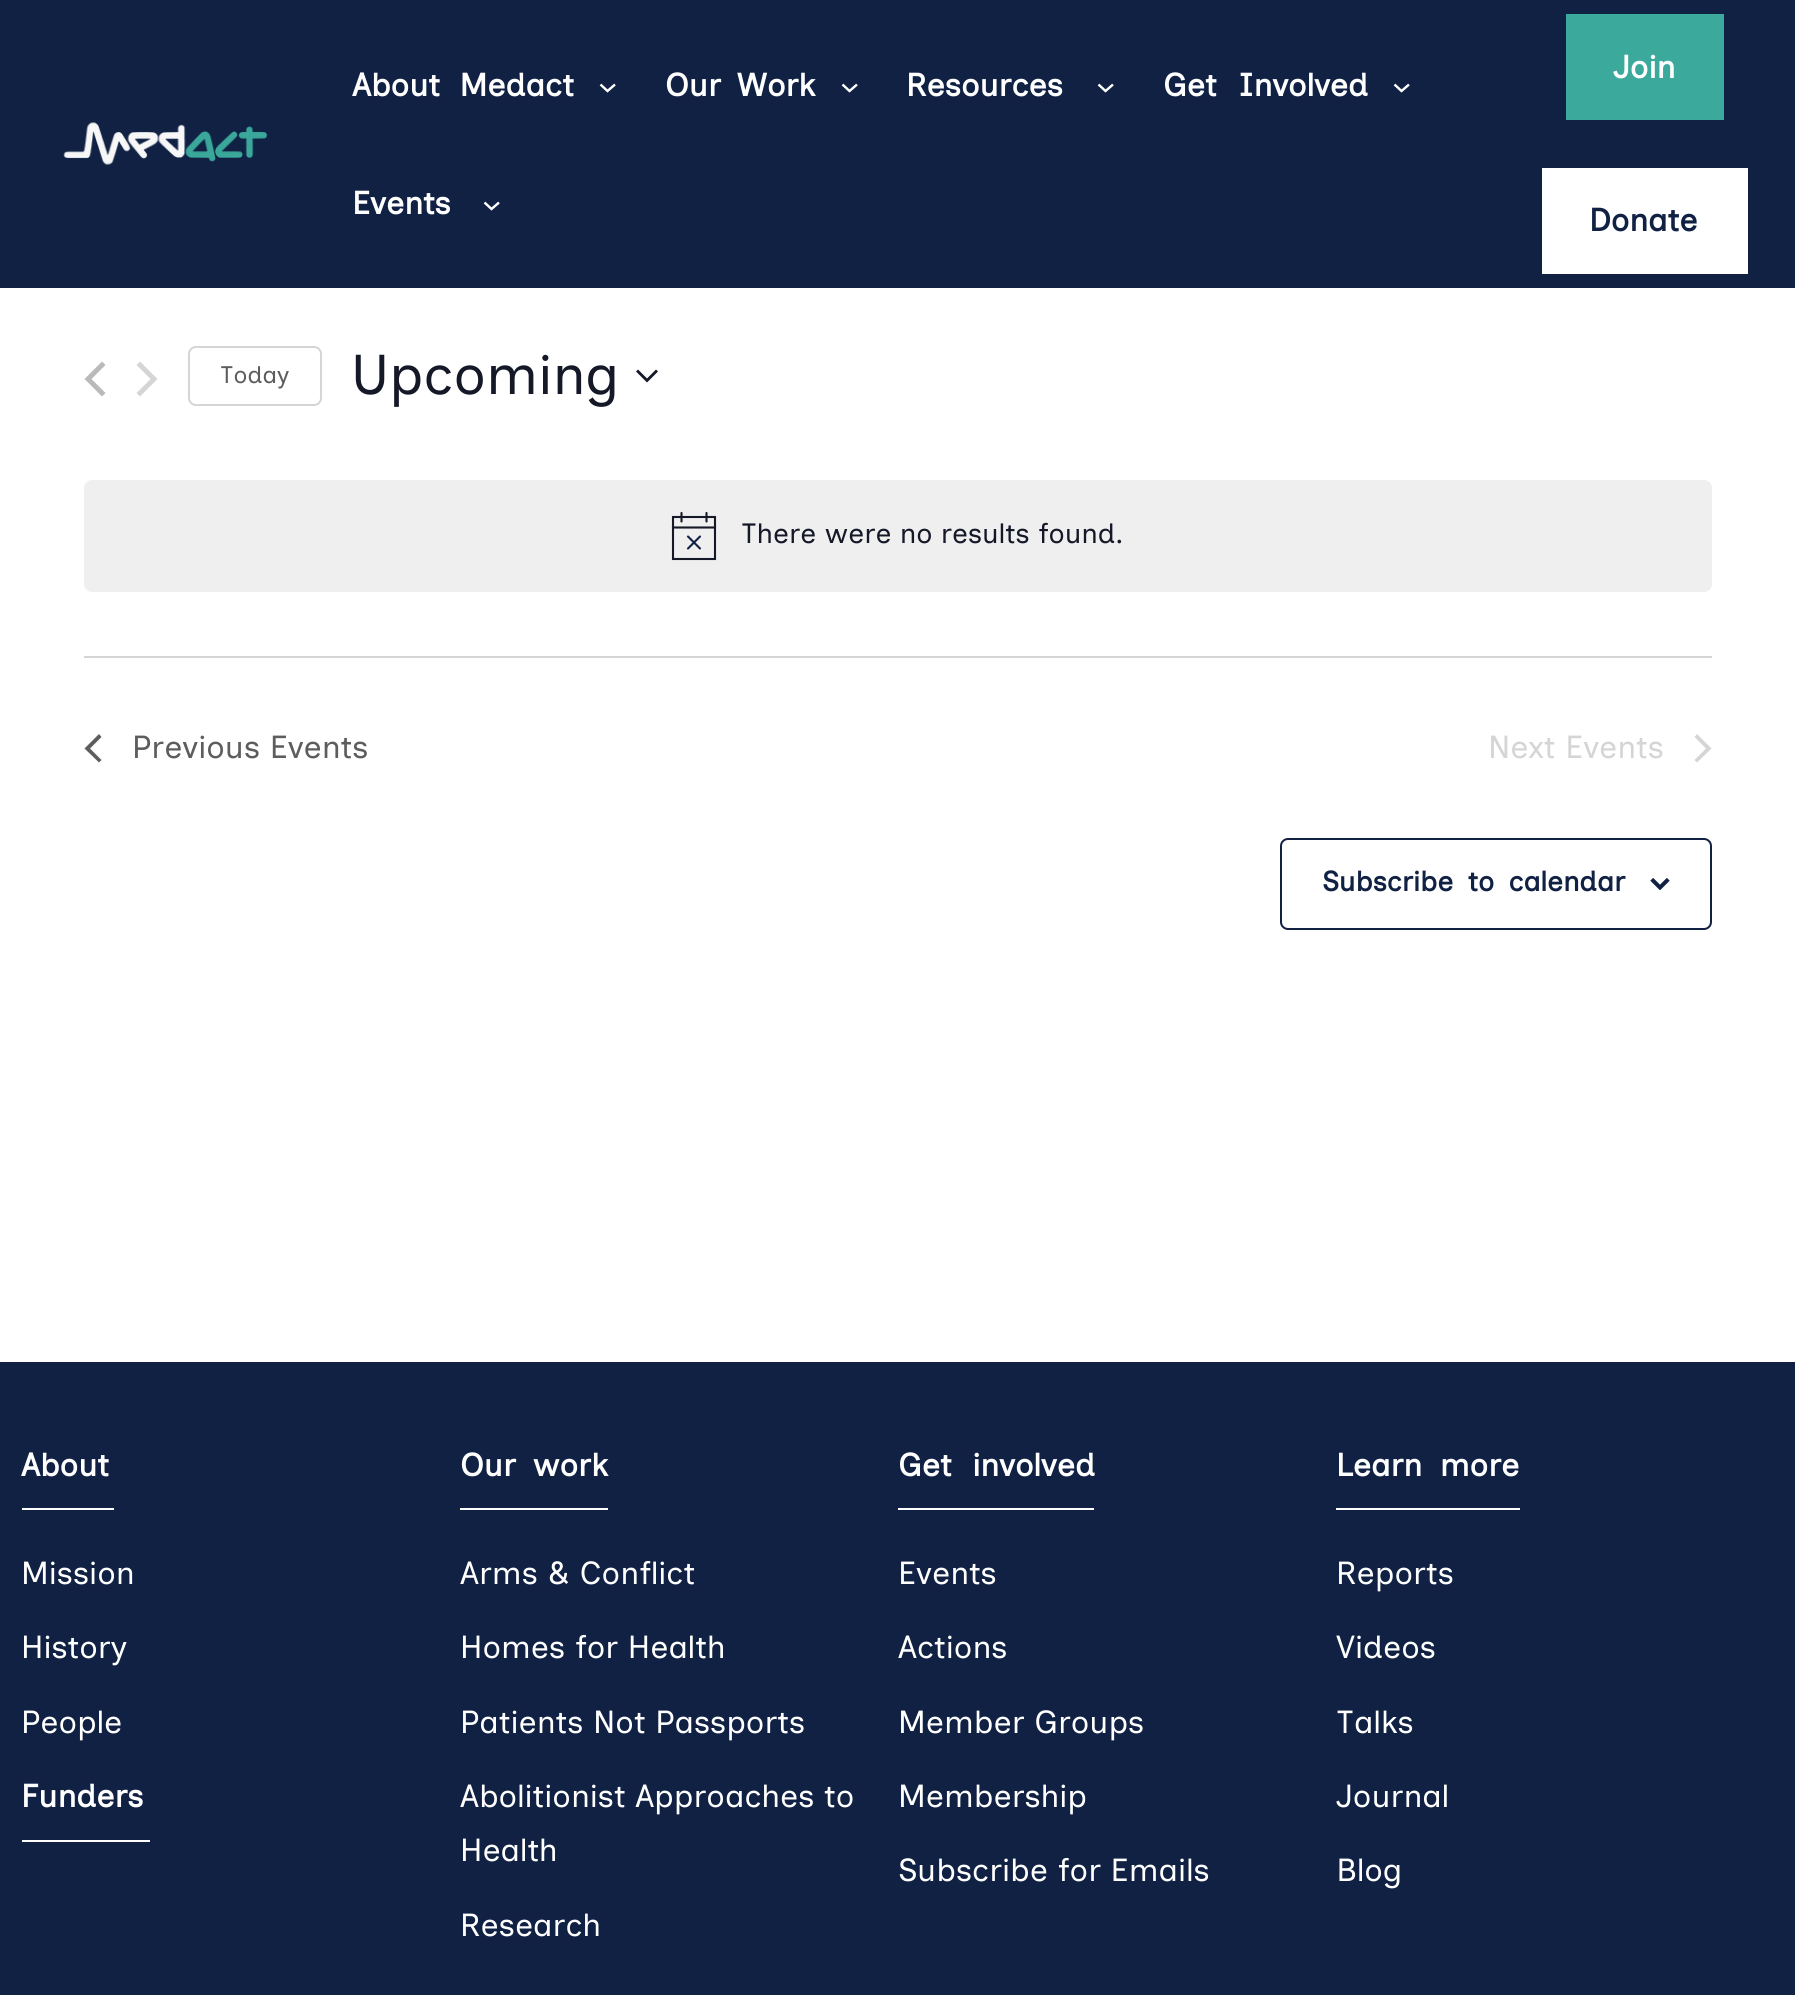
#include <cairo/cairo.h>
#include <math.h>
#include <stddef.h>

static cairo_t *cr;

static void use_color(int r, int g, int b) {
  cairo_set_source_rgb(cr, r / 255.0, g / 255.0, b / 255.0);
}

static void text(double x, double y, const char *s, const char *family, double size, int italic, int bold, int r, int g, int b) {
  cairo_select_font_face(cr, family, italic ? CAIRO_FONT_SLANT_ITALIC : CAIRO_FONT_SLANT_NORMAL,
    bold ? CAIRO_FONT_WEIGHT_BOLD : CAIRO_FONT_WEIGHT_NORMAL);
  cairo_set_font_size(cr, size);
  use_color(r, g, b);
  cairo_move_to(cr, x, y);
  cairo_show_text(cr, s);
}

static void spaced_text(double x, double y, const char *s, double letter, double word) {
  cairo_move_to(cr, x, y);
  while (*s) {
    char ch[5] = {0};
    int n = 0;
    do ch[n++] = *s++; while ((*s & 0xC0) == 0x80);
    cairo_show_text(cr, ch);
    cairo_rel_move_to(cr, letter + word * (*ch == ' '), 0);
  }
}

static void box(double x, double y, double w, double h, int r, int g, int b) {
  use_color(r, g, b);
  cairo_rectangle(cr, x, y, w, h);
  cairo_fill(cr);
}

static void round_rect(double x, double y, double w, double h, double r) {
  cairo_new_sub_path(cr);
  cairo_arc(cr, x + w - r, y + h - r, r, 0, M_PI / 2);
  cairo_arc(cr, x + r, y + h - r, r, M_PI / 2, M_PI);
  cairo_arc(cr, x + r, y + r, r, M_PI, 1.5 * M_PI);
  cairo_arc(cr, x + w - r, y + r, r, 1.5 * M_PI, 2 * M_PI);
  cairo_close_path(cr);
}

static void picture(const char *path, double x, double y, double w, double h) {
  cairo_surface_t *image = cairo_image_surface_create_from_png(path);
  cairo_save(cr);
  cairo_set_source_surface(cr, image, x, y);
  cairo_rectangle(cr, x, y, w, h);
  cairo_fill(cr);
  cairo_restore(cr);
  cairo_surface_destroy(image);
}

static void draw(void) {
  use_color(255, 255, 255);
  cairo_paint(cr);
  box(0, 0, 1795, 288, 16, 33, 68);
  picture("img_01.png", 63, 122, 204, 43);
  cairo_new_path(cr);
  cairo_move_to(cr, 600.5, 84.5);
  cairo_line_to(cr, 607.5, 91);
  cairo_line_to(cr, 615, 84.5);
  use_color(255, 255, 255);
  cairo_set_line_width(cr, 2.4);
  cairo_stroke(cr);
  cairo_new_path(cr);
  cairo_move_to(cr, 842.5, 84.5);
  cairo_line_to(cr, 849.5, 91);
  cairo_line_to(cr, 857, 84.5);
  cairo_stroke(cr);
  cairo_new_path(cr);
  cairo_move_to(cr, 1098.5, 84.5);
  cairo_line_to(cr, 1105.5, 91);
  cairo_line_to(cr, 1113, 84.5);
  cairo_stroke(cr);
  cairo_new_path(cr);
  cairo_move_to(cr, 1394.5, 84.5);
  cairo_line_to(cr, 1401.5, 91);
  cairo_line_to(cr, 1409, 84.5);
  cairo_stroke(cr);
  cairo_new_path(cr);
  cairo_move_to(cr, 484.5, 202.5);
  cairo_line_to(cr, 491.5, 209);
  cairo_line_to(cr, 499, 202.5);
  cairo_stroke(cr);
  box(1566, 14, 158, 106, 59, 169, 156);
  box(1542, 168, 206, 106, 255, 255, 255);
  use_color(186, 186, 186);
  cairo_new_path(cr);
  cairo_move_to(cr, 105.5, 393);
  cairo_line_to(cr, 102, 396.5);
  cairo_line_to(cr, 84.5, 379);
  cairo_line_to(cr, 102, 361.5);
  cairo_line_to(cr, 105.5, 365);
  cairo_line_to(cr, 91.5, 379);
  cairo_close_path(cr);
  cairo_fill(cr);
  use_color(213, 213, 213);
  cairo_new_path(cr);
  cairo_move_to(cr, 136.5, 365);
  cairo_line_to(cr, 140, 361.5);
  cairo_line_to(cr, 157.5, 379);
  cairo_line_to(cr, 140, 396.5);
  cairo_line_to(cr, 136.5, 393);
  cairo_line_to(cr, 150.5, 379);
  cairo_close_path(cr);
  cairo_fill(cr);
  round_rect(189, 347, 132, 58, 7);
  cairo_set_line_width(cr, 2);
  cairo_stroke(cr);
  use_color(20, 24, 39);
  cairo_set_fill_rule(cr, CAIRO_FILL_RULE_EVEN_ODD);
  cairo_new_path(cr);
  cairo_move_to(cr, 638, 369.5);
  cairo_line_to(cr, 647, 378.5);
  cairo_line_to(cr, 656, 369.5);
  cairo_line_to(cr, 658, 371.5);
  cairo_line_to(cr, 647, 382.5);
  cairo_line_to(cr, 636, 371.5);
  cairo_close_path(cr);
  cairo_fill(cr);
  use_color(239, 239, 240);
  round_rect(84, 480, 1628, 112, 8);
  cairo_fill(cr);
  cairo_new_path(cr);
  cairo_move_to(cr, 673, 517);
  cairo_line_to(cr, 715, 517);
  cairo_line_to(cr, 715, 559);
  cairo_line_to(cr, 673, 559);
  cairo_close_path(cr);
  use_color(20, 24, 39);
  cairo_set_line_width(cr, 2.1);
  cairo_stroke(cr);
  cairo_new_path(cr);
  cairo_move_to(cr, 688, 536.5);
  cairo_line_to(cr, 700, 548.5);
  cairo_move_to(cr, 700, 536.5);
  cairo_line_to(cr, 688, 548.5);
  use_color(16, 33, 68);
  cairo_set_line_cap(cr, CAIRO_LINE_CAP_ROUND);
  cairo_stroke(cr);
  cairo_new_path(cr);
  cairo_move_to(cr, 681.5, 513);
  cairo_line_to(cr, 681.5, 521.5);
  cairo_move_to(cr, 706.5, 513);
  cairo_line_to(cr, 706.5, 521.5);
  use_color(20, 24, 39);
  cairo_stroke(cr);
  cairo_new_path(cr);
  cairo_move_to(cr, 673, 527.5);
  cairo_line_to(cr, 715, 527.5);
  cairo_set_line_cap(cr, CAIRO_LINE_CAP_SQUARE);
  cairo_stroke(cr);
  box(84, 656, 1628, 2, 213, 213, 213);
  use_color(93, 93, 93);
  cairo_set_fill_rule(cr, CAIRO_FILL_RULE_WINDING);
  cairo_new_path(cr);
  cairo_move_to(cr, 101.5, 760);
  cairo_line_to(cr, 99, 762.5);
  cairo_line_to(cr, 84.5, 748.5);
  cairo_line_to(cr, 99, 734);
  cairo_line_to(cr, 101.5, 737);
  cairo_line_to(cr, 90, 748.5);
  cairo_close_path(cr);
  cairo_fill(cr);
  use_color(213, 213, 213);
  cairo_new_path(cr);
  cairo_move_to(cr, 1694.5, 737);
  cairo_line_to(cr, 1697, 734);
  cairo_line_to(cr, 1711.5, 748.5);
  cairo_line_to(cr, 1697, 762.5);
  cairo_line_to(cr, 1694.5, 760);
  cairo_line_to(cr, 1706, 748.5);
  cairo_close_path(cr);
  cairo_fill(cr);
  round_rect(1281, 839, 430, 90, 7);
  use_color(16, 33, 68);
  cairo_set_line_width(cr, 2);
  cairo_set_line_cap(cr, CAIRO_LINE_CAP_BUTT);
  cairo_stroke(cr);
  picture("img_02.png", 1650, 878, 20, 12);
  box(0, 1362, 1795, 633, 16, 33, 68);
  box(22, 1508, 92, 2, 255, 255, 255);
  box(22, 1840, 128, 2, 255, 255, 255);
  box(460, 1508, 148, 2, 255, 255, 255);
  box(898, 1508, 196, 2, 255, 255, 255);
  box(1336, 1508, 184, 2, 255, 255, 255);
  cairo_select_font_face(cr, "Inclusive Sans", CAIRO_FONT_SLANT_NORMAL, CAIRO_FONT_WEIGHT_BOLD);
  cairo_set_font_size(cr, 32);
  spaced_text(352, 96, "About Medact", 0, 10);
  spaced_text(665, 96, "Our Work", 0, 6);
  text(906, 96, "Resources", "Inclusive Sans", 32, 0, 1, 255, 255, 255);
  spaced_text(1163, 96, "Get Involved", 0, 12);
  text(352, 214, "Events", "Inclusive Sans", 32, 0, 1, 255, 255, 255);
  text(1613, 78, "Join", "Inclusive Sans", 32, 0, 1, 255, 255, 255);
  text(1589, 231, "Donate", "Inclusive Sans", 32, 0, 1, 16, 33, 68);
  text(220, 383, "Today", "Inclusive Sans", 24, 0, 0, 93, 93, 93);
  text(351, 394, "Upcoming", "Inclusive Sans", 56, 0, 0, 20, 24, 39);
  text(741, 543, "There were no results found.", "Inclusive Sans", 28, 0, 0, 20, 24, 39);
  text(132, 758, "Previous Events", "Inclusive Sans", 32, 0, 0, 93, 93, 93);
  text(1488, 758, "Next Events", "Inclusive Sans", 32, 0, 0, 213, 213, 213);
  cairo_select_font_face(cr, "Inclusive Sans", CAIRO_FONT_SLANT_NORMAL, CAIRO_FONT_WEIGHT_BOLD);
  cairo_set_font_size(cr, 28);
  use_color(16, 33, 68);
  spaced_text(1322, 891, "Subscribe to calendar", 0, 6);
  text(21, 1476, "About", "Inclusive Sans", 32, 0, 1, 255, 255, 255);
  text(21, 1584, "Mission", "Inclusive Sans", 32, 0, 0, 255, 255, 255);
  text(21, 1658, "History", "Inclusive Sans", 32, 0, 0, 255, 255, 255);
  text(21, 1733, "People", "Inclusive Sans", 32, 0, 0, 255, 255, 255);
  text(21, 1807, "Funders", "Inclusive Sans", 32, 0, 1, 255, 255, 255);
  spaced_text(460, 1476, "Our work", 0, 7);
  text(460, 1584, "Arms & Conflict", "Inclusive Sans", 32, 0, 0, 255, 255, 255);
  text(460, 1658, "Homes for Health", "Inclusive Sans", 32, 0, 0, 255, 255, 255);
  text(460, 1733, "Patients Not Passports", "Inclusive Sans", 32, 0, 0, 255, 255, 255);
  text(460, 1807, "Abolitionist Approaches to", "Inclusive Sans", 32, 0, 0, 255, 255, 255);
  text(460, 1861, "Health", "Inclusive Sans", 32, 0, 0, 255, 255, 255);
  text(460, 1936, "Research", "Inclusive Sans", 32, 0, 0, 255, 255, 255);
  cairo_select_font_face(cr, "Inclusive Sans", CAIRO_FONT_SLANT_NORMAL, CAIRO_FONT_WEIGHT_BOLD);
  spaced_text(898, 1476, "Get involved", 0, 11);
  text(898, 1584, "Events", "Inclusive Sans", 32, 0, 0, 255, 255, 255);
  text(898, 1658, "Actions", "Inclusive Sans", 32, 0, 0, 255, 255, 255);
  text(898, 1733, "Member Groups", "Inclusive Sans", 32, 0, 0, 255, 255, 255);
  text(898, 1807, "Membership", "Inclusive Sans", 32, 0, 0, 255, 255, 255);
  text(898, 1881, "Subscribe for Emails", "Inclusive Sans", 32, 0, 0, 255, 255, 255);
  cairo_select_font_face(cr, "Inclusive Sans", CAIRO_FONT_SLANT_NORMAL, CAIRO_FONT_WEIGHT_BOLD);
  spaced_text(1336, 1476, "Learn more", 0, 8);
  text(1336, 1584, "Reports", "Inclusive Sans", 32, 0, 0, 255, 255, 255);
  text(1336, 1658, "Videos", "Inclusive Sans", 32, 0, 0, 255, 255, 255);
  text(1336, 1733, "Talks", "Inclusive Sans", 32, 0, 0, 255, 255, 255);
  text(1336, 1807, "Journal", "Inclusive Sans", 32, 0, 0, 255, 255, 255);
  text(1336, 1881, "Blog", "Inclusive Sans", 32, 0, 0, 255, 255, 255);
}

int main(void) {
  cairo_surface_t *surface = cairo_image_surface_create(CAIRO_FORMAT_RGB24, 1795, 1995);
  cr = cairo_create(surface);
  cairo_font_options_t *options = cairo_font_options_create();
  cairo_font_options_set_hint_metrics(options, CAIRO_HINT_METRICS_OFF);
  cairo_font_options_set_hint_style(options, CAIRO_HINT_STYLE_NONE);
  cairo_set_font_options(cr, options);
  cairo_set_miter_limit(cr, 4);
  draw();
  cairo_surface_write_to_png(surface, "out.png");
  cairo_font_options_destroy(options);
  cairo_destroy(cr);
  cairo_surface_destroy(surface);
  return 0;
}
